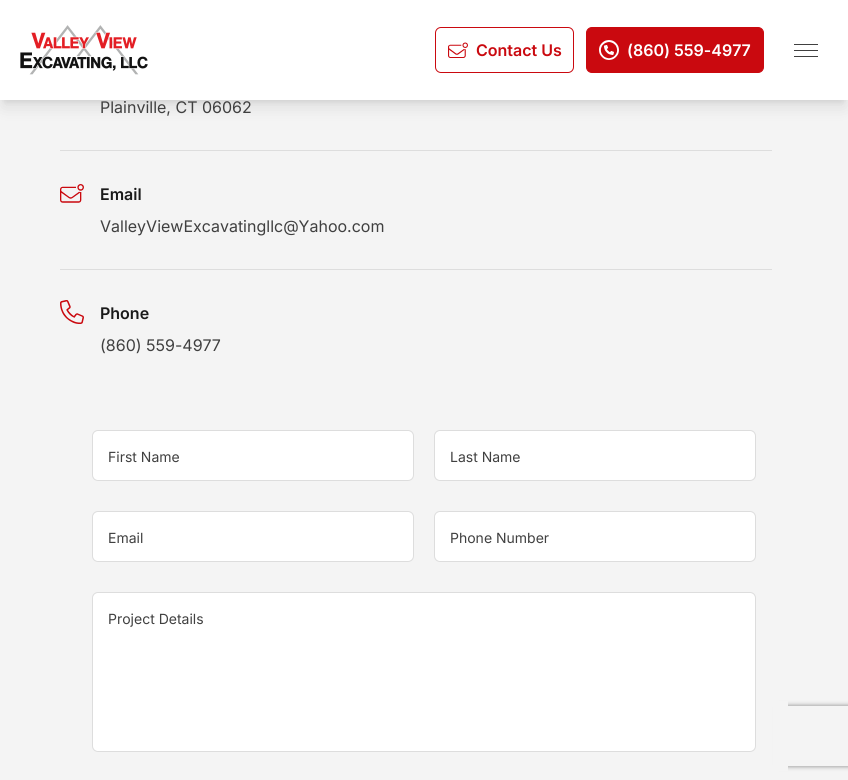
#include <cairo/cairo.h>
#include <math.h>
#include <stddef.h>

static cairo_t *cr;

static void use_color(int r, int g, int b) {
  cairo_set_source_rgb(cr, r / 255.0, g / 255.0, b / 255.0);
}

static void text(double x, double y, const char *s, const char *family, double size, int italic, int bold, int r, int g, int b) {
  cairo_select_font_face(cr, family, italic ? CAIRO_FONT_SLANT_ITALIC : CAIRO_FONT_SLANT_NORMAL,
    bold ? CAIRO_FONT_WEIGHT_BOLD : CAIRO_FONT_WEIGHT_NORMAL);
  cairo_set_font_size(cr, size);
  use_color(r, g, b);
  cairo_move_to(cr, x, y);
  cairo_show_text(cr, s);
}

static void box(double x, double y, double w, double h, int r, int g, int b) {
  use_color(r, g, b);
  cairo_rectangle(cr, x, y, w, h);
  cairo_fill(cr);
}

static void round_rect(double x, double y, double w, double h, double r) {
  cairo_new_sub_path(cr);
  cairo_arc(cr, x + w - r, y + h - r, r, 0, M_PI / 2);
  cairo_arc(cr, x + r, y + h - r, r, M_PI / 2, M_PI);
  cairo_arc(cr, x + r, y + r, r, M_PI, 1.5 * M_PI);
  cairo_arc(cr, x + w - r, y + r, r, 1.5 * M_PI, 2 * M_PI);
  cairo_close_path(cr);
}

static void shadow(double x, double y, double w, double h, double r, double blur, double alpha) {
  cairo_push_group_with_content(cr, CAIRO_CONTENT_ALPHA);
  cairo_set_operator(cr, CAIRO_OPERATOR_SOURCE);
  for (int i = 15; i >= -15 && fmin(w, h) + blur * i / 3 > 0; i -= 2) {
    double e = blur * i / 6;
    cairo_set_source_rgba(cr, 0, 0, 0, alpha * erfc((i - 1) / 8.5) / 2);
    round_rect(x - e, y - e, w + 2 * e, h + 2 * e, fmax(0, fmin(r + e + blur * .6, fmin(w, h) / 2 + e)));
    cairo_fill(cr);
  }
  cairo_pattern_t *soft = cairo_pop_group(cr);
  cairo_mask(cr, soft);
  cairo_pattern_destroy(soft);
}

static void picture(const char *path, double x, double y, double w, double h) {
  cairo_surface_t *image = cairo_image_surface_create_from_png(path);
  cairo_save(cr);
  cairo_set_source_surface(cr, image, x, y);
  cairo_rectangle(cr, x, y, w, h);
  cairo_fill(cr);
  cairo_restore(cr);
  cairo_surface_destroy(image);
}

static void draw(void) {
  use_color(244, 244, 244);
  cairo_paint(cr);
  use_color(0, 0, 0);
  shadow(4, 8, 840, 92, 0, 3, 0.1);
  shadow(3, 13, 842, 94, 0, 7.5, 0.1);
  box(0, 0, 848, 100, 255, 255, 255);
  picture("img_01.png", 20, 25, 128, 50);
  round_rect(435.5, 27.5, 138, 45, 5.5);
  use_color(202, 9, 15);
  cairo_set_line_width(cr, 1);
  cairo_stroke(cr);
  picture("img_02.png", 448, 42, 20, 16);
  round_rect(586.5, 27.5, 177, 45, 5.5);
  cairo_fill_preserve(cr);
  cairo_stroke(cr);
  picture("img_03.png", 599, 40, 20, 20);
  picture("img_04.png", 794, 44, 24, 13);
  box(60, 150, 712, 1, 221, 221, 221);
  picture("img_05.png", 60, 184, 24, 19);
  box(60, 269, 712, 1, 221, 221, 221);
  picture("img_06.png", 60, 300, 24, 24);
  cairo_save(cr);
  cairo_set_fill_rule(cr, CAIRO_FILL_RULE_EVEN_ODD);
  cairo_new_path(cr);
  cairo_move_to(cr, 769, 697);
  cairo_line_to(cr, 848, 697);
  cairo_line_to(cr, 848, 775);
  cairo_line_to(cr, 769, 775);
  cairo_close_path(cr);
  cairo_move_to(cr, 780, 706);
  cairo_line_to(cr, 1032, 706);
  cairo_curve_to(cr, 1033, 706, 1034, 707, 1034, 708);
  cairo_line_to(cr, 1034, 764);
  cairo_curve_to(cr, 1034, 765, 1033, 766, 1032, 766);
  cairo_line_to(cr, 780, 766);
  cairo_curve_to(cr, 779, 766, 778, 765, 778, 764);
  cairo_line_to(cr, 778, 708);
  cairo_curve_to(cr, 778, 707, 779, 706, 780, 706);
  cairo_close_path(cr);
  cairo_clip(cr);
  use_color(128, 128, 128);
  shadow(778, 706, 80, 60, 2, 2.5, 1);
  cairo_restore(cr);
  box(773, 701, 15, 70, 244, 244, 244);
  use_color(255, 255, 255);
  round_rect(92.5, 430.5, 321, 50, 5.5);
  cairo_fill_preserve(cr);
  use_color(221, 221, 221);
  cairo_stroke(cr);
  use_color(255, 255, 255);
  round_rect(434.5, 430.5, 321, 50, 5.5);
  cairo_fill_preserve(cr);
  use_color(221, 221, 221);
  cairo_stroke(cr);
  use_color(255, 255, 255);
  round_rect(92.5, 511.5, 321, 50, 5.5);
  cairo_fill_preserve(cr);
  use_color(221, 221, 221);
  cairo_stroke(cr);
  use_color(255, 255, 255);
  round_rect(434.5, 511.5, 321, 50, 5.5);
  cairo_fill_preserve(cr);
  use_color(221, 221, 221);
  cairo_stroke(cr);
  use_color(255, 255, 255);
  round_rect(92.5, 592.5, 663, 159, 5.5);
  cairo_fill_preserve(cr);
  use_color(221, 221, 221);
  cairo_stroke(cr);
  text(476, 56, "Contact Us", "Inter SemiBold", 16, 0, 0, 202, 9, 15);
  text(627, 56, "(860) 559-4977", "Inter SemiBold", 16, 0, 0, 255, 255, 255);
  text(100, 113, "Plainville, CT 06062", "Inter", 16, 0, 0, 64, 64, 64);
  text(100, 200, "Email", "Inter SemiBold", 16, 0, 0, 26, 26, 26);
  text(100, 232, "ValleyViewExcavatingllc@Yahoo.com", "Inter", 16, 0, 0, 64, 64, 64);
  text(100, 319, "Phone", "Inter SemiBold", 16, 0, 0, 26, 26, 26);
  text(100, 351, "(860) 559-4977", "Inter", 16, 0, 0, 64, 64, 64);
  text(108, 462, "First Name", "Inter", 14, 0, 0, 64, 64, 64);
  text(450, 462, "Last Name", "Inter", 14, 0, 0, 64, 64, 64);
  text(108, 543, "Email", "Inter", 14, 0, 0, 64, 64, 64);
  text(450, 543, "Phone Number", "Inter", 14, 0, 0, 64, 64, 64);
  text(108, 624, "Project Details", "Inter", 14, 0, 0, 64, 64, 64);
}

int main(void) {
  cairo_surface_t *surface = cairo_image_surface_create(CAIRO_FORMAT_RGB24, 848, 780);
  cr = cairo_create(surface);
  cairo_font_options_t *options = cairo_font_options_create();
  cairo_font_options_set_hint_metrics(options, CAIRO_HINT_METRICS_OFF);
  cairo_font_options_set_hint_style(options, CAIRO_HINT_STYLE_NONE);
  cairo_set_font_options(cr, options);
  cairo_set_miter_limit(cr, 4);
  draw();
  cairo_surface_write_to_png(surface, "out.png");
  cairo_font_options_destroy(options);
  cairo_destroy(cr);
  cairo_surface_destroy(surface);
  return 0;
}
